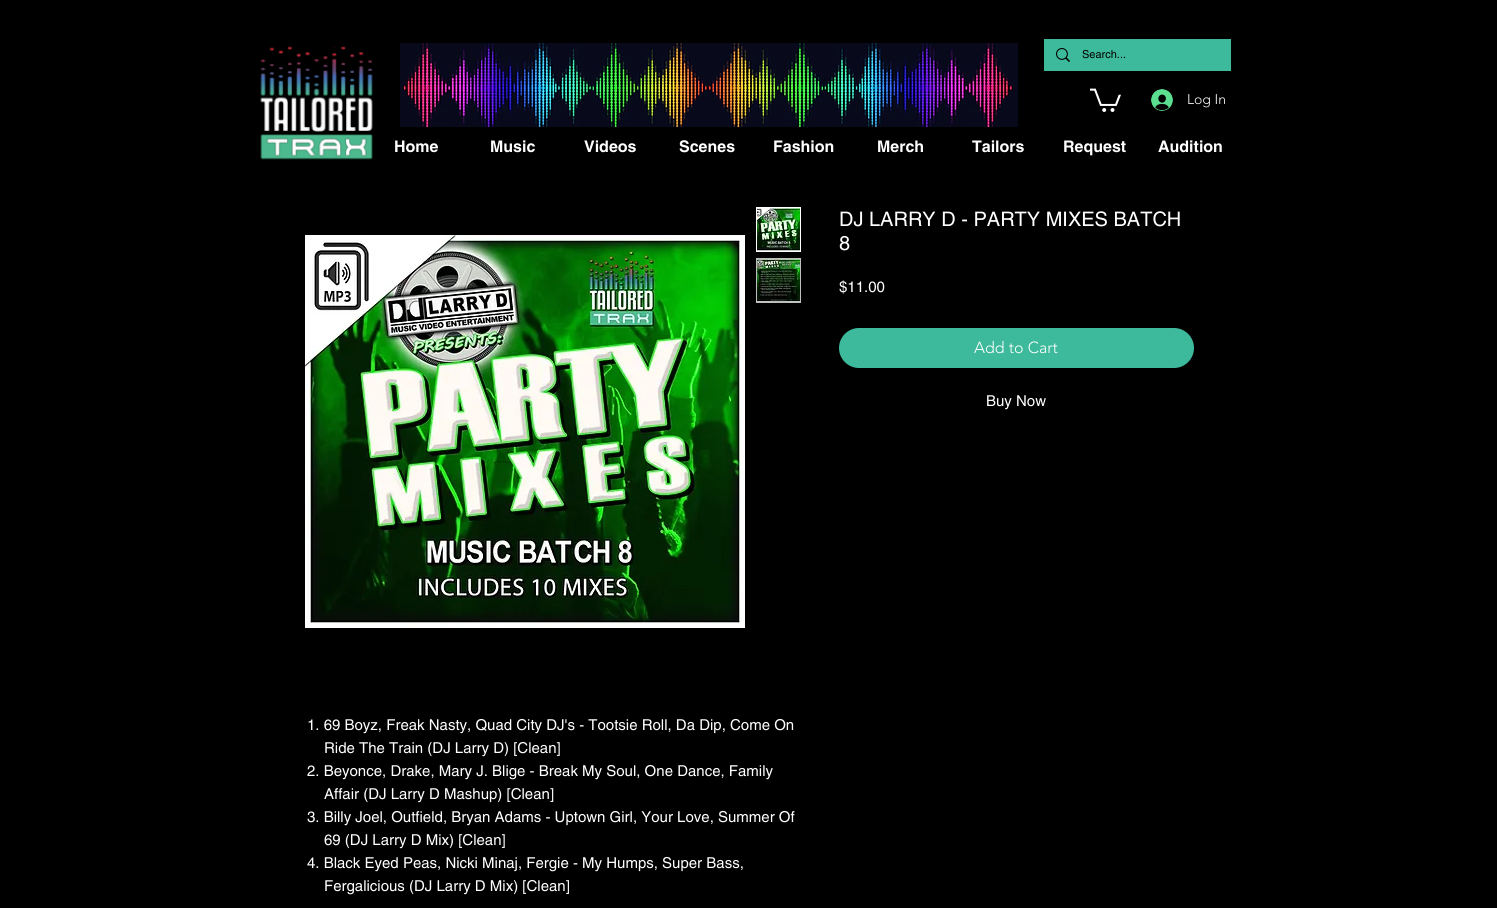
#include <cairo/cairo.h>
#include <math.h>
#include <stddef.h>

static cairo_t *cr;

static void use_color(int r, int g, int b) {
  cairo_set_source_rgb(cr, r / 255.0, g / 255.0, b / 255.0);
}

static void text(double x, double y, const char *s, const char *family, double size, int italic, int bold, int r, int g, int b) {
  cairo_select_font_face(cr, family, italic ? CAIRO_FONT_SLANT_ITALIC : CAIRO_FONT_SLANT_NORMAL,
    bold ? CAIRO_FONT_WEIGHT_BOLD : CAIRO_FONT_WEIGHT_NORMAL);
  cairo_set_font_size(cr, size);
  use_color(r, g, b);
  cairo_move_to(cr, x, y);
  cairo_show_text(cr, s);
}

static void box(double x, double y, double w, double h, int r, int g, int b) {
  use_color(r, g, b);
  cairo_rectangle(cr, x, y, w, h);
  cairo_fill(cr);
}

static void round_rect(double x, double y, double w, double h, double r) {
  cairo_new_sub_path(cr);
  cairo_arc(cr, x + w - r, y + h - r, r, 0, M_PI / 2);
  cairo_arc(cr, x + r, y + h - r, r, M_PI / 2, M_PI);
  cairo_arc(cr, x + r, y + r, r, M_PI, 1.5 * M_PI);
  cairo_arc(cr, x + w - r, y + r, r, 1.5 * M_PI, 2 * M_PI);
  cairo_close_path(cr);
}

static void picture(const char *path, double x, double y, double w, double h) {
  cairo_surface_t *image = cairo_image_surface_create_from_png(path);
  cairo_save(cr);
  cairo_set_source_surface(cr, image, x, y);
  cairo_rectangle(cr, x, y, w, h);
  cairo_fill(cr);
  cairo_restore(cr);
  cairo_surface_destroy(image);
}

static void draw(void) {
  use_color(0, 0, 0);
  cairo_paint(cr);
  picture("img_01.png", 260, 46, 113, 114);
  picture("img_02.png", 400, 43, 618, 84);
  box(1044, 39, 187, 32, 61, 186, 155);
  picture("img_03.png", 1056, 48, 14, 14);
  picture("img_04.png", 1090, 88, 31, 24);
  picture("img_05.png", 1151, 89, 22, 22);
  round_rect(839, 328, 355, 40, 20);
  cairo_fill(cr);
  picture("img_06.png", 305, 235, 440, 393);
  cairo_rectangle(cr, 756.5, 207.5, 44, 44);
  use_color(255, 255, 255);
  cairo_set_line_width(cr, 1);
  cairo_stroke(cr);
  picture("img_07.png", 757, 208, 43, 43);
  box(756, 258, 45, 45, 191, 191, 191);
  picture("img_08.png", 757, 259, 43, 43);
  text(1082, 58, "Search...", "helvetica", 11, 0, 0, 0, 0, 0);
  text(1187, 104, "Log In", "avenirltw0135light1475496 Light", 14, 0, 0, 255, 255, 255);
  text(394, 152, "Home", "helvetica", 16, 0, 1, 255, 255, 255);
  text(490, 152, "Music", "helvetica", 16, 0, 1, 255, 255, 255);
  text(584, 152, "Videos", "helvetica", 16, 0, 1, 255, 255, 255);
  text(679, 152, "Scenes", "helvetica", 16, 0, 1, 255, 255, 255);
  text(773, 152, "Fashion", "helvetica", 16, 0, 1, 255, 255, 255);
  text(877, 152, "Merch", "helvetica", 16, 0, 1, 255, 255, 255);
  text(972, 152, "Tailors", "helvetica", 16, 0, 1, 255, 255, 255);
  text(1063, 152, "Request", "helvetica", 16, 0, 1, 255, 255, 255);
  text(1158, 152, "Audition", "helvetica", 16, 0, 1, 255, 255, 255);
  text(839, 226, "DJ LARRY D - PARTY MIXES BATCH", "helvetica", 20, 0, 0, 255, 255, 255);
  text(839, 250, "8", "helvetica", 20, 0, 0, 255, 255, 255);
  text(839, 292, "$11.00", "helvetica", 15, 0, 0, 255, 255, 255);
  text(974, 353, "Add to Cart", "avenirltw0135light1475496 Light", 16, 0, 0, 255, 255, 255);
  text(986, 406, "Buy Now", "helvetica", 15, 0, 0, 255, 255, 255);
  text(307, 730, "1. 69 Boyz, Freak Nasty, Quad City DJ's - Tootsie Roll, Da Dip, Come On", "helvetica", 15, 0, 0, 255, 255, 255);
  text(324, 753, "Ride The Train (DJ Larry D) [Clean]", "helvetica", 15, 0, 0, 255, 255, 255);
  text(307, 776, "2. Beyonce, Drake, Mary J. Blige - Break My Soul, One Dance, Family", "helvetica", 15, 0, 0, 255, 255, 255);
  text(324, 799, "Affair (DJ Larry D Mashup) [Clean]", "helvetica", 15, 0, 0, 255, 255, 255);
  text(307, 822, "3. Billy Joel, Outfield, Bryan Adams - Uptown Girl, Your Love, Summer Of", "helvetica", 15, 0, 0, 255, 255, 255);
  text(324, 845, "69 (DJ Larry D Mix) [Clean]", "helvetica", 15, 0, 0, 255, 255, 255);
  text(307, 868, "4. Black Eyed Peas, Nicki Minaj, Fergie - My Humps, Super Bass,", "helvetica", 15, 0, 0, 255, 255, 255);
  text(324, 891, "Fergalicious (DJ Larry D Mix) [Clean]", "helvetica", 15, 0, 0, 255, 255, 255);
}

int main(void) {
  cairo_surface_t *surface = cairo_image_surface_create(CAIRO_FORMAT_RGB24, 1497, 908);
  cr = cairo_create(surface);
  cairo_font_options_t *options = cairo_font_options_create();
  cairo_font_options_set_hint_metrics(options, CAIRO_HINT_METRICS_OFF);
  cairo_font_options_set_hint_style(options, CAIRO_HINT_STYLE_NONE);
  cairo_set_font_options(cr, options);
  cairo_set_miter_limit(cr, 4);
  draw();
  cairo_surface_write_to_png(surface, "out.png");
  cairo_font_options_destroy(options);
  cairo_destroy(cr);
  cairo_surface_destroy(surface);
  return 0;
}
